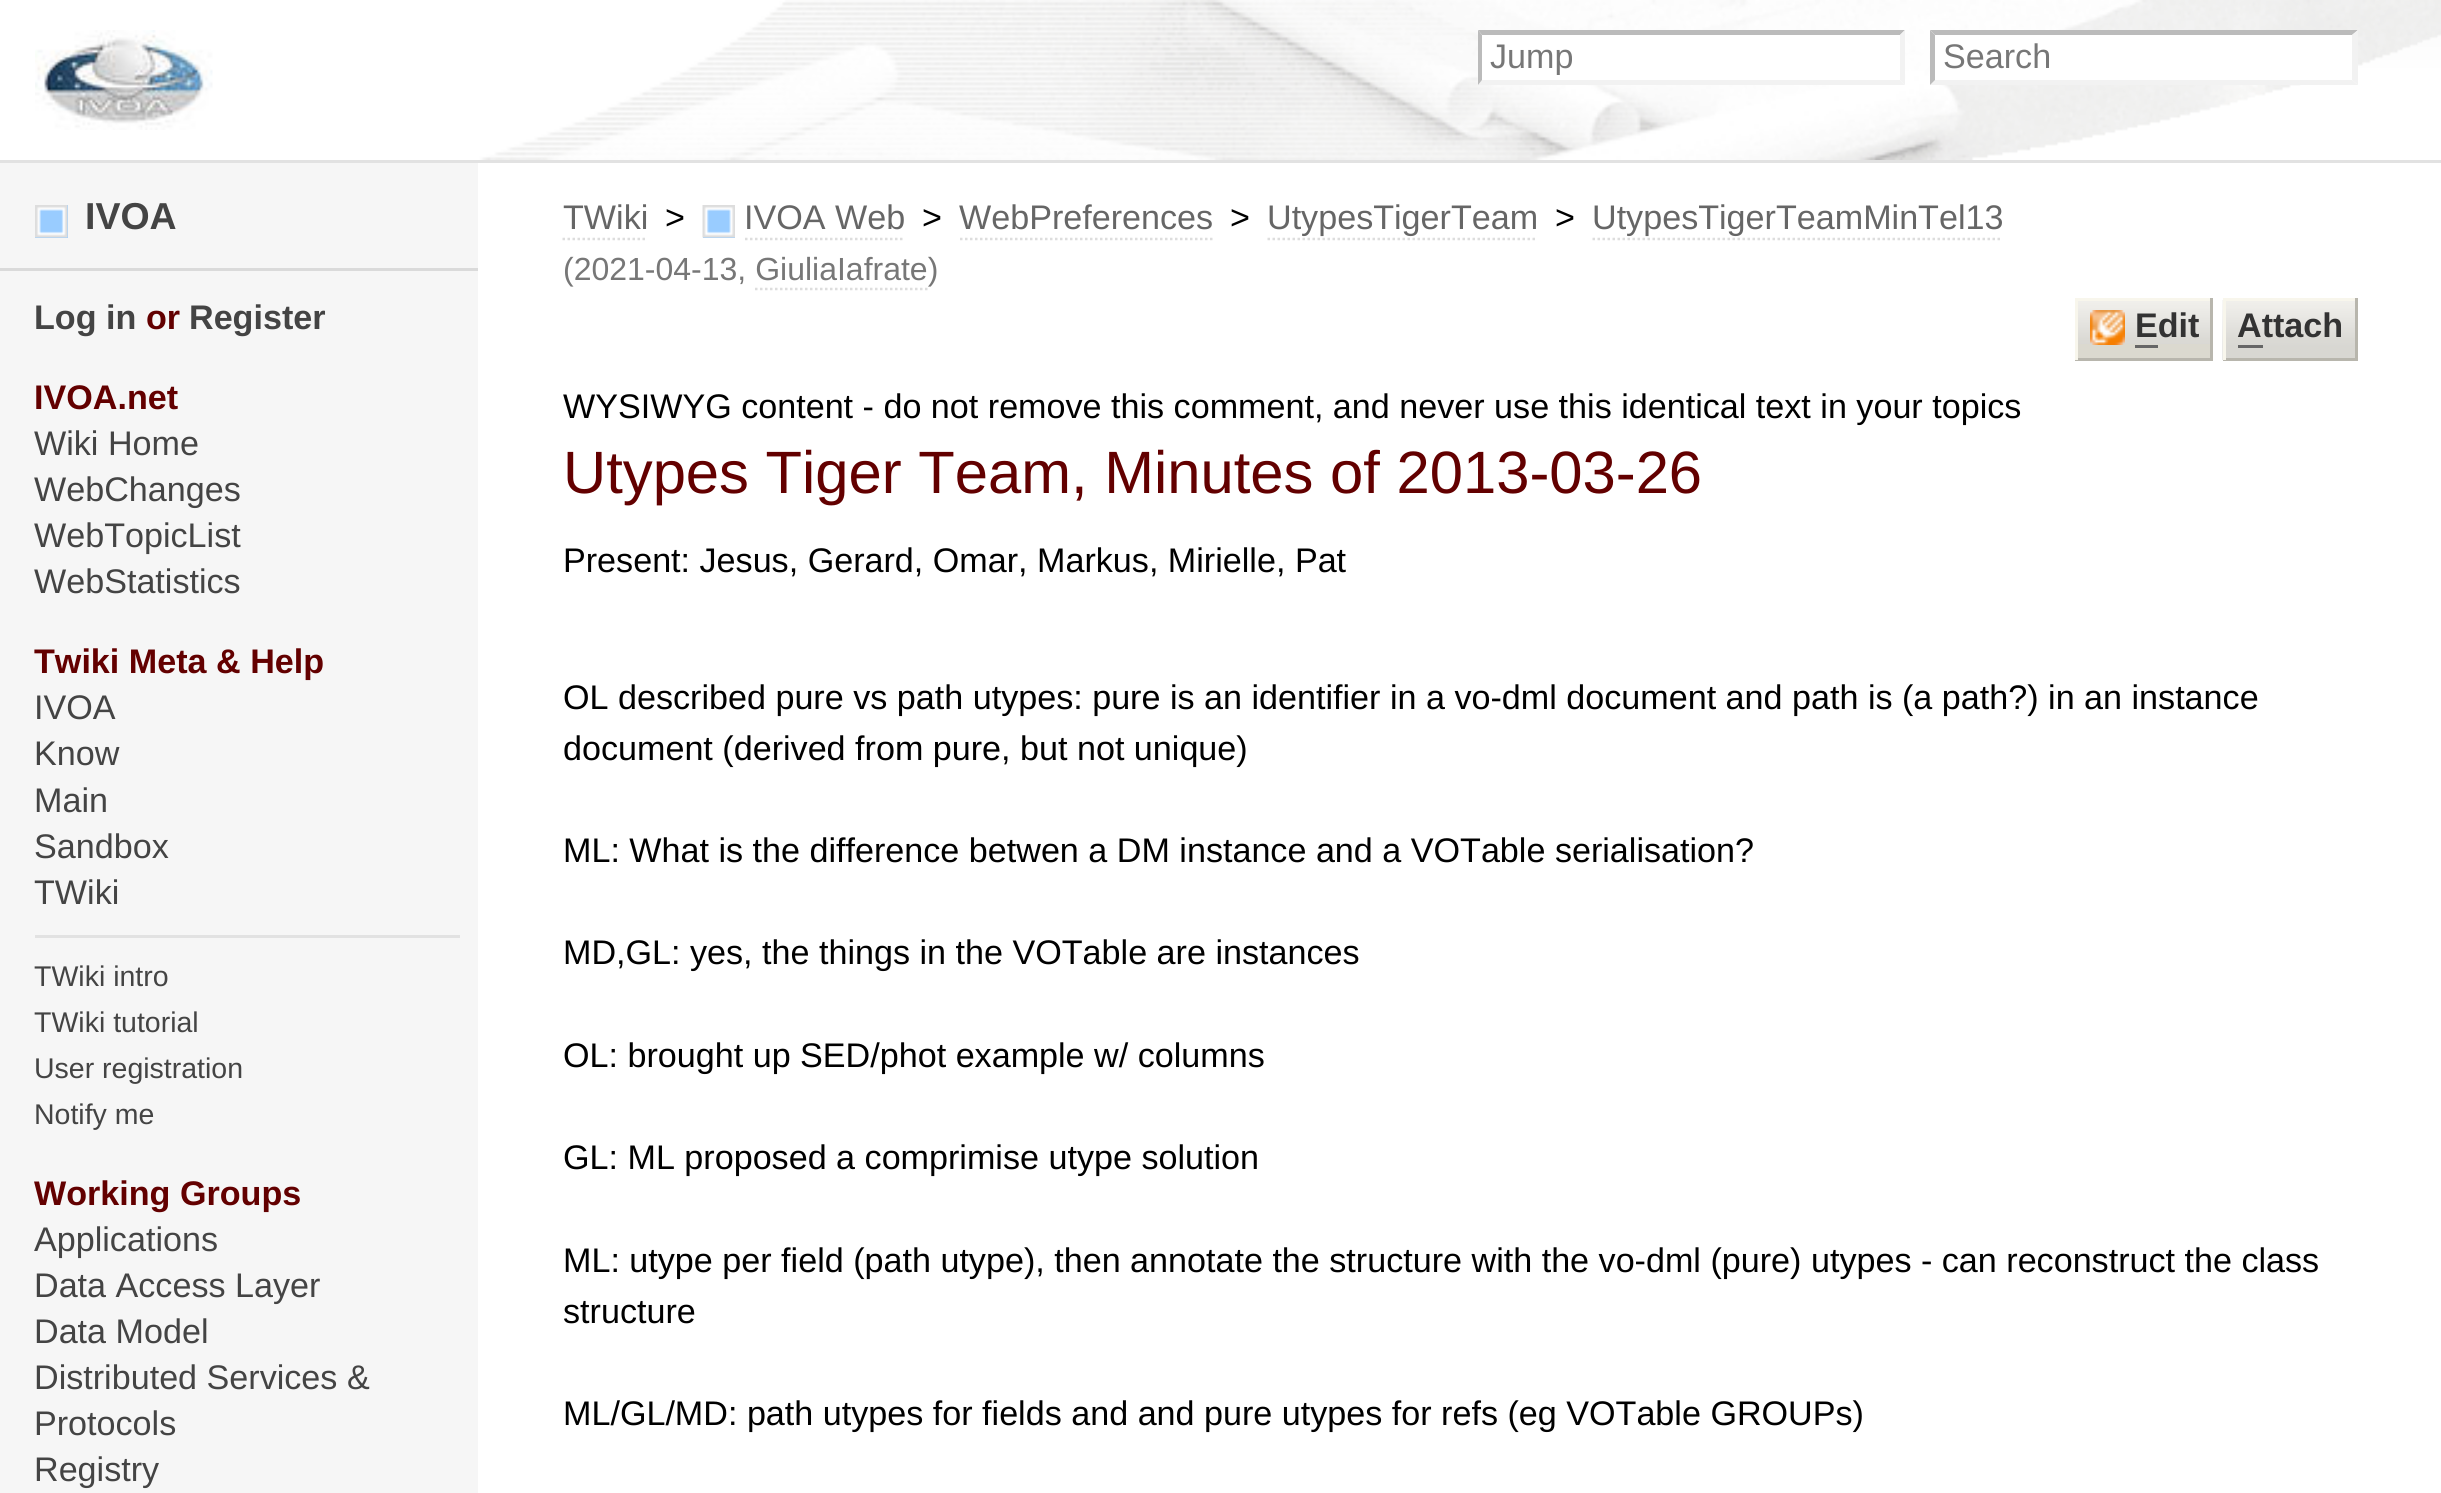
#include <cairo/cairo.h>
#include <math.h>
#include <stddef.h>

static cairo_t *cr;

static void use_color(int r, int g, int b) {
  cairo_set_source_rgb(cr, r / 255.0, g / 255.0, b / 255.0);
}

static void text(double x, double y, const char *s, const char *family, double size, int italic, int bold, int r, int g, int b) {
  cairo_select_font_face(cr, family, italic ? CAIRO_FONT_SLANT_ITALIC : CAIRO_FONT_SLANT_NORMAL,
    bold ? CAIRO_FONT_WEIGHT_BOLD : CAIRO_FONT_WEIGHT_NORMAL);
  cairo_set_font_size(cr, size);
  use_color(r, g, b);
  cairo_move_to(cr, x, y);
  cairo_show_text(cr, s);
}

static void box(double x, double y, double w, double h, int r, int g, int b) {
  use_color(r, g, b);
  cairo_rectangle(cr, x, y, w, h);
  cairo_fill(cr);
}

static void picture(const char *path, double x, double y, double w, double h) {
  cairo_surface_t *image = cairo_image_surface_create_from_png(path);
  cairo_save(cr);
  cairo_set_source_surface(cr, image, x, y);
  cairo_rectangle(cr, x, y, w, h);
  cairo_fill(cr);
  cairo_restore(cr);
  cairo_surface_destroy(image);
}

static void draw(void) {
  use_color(255, 255, 255);
  cairo_paint(cr);
  picture("img_01.png", 1971, 34, 470, 126);
  box(0, 160, 2441, 3, 226, 226, 226);
  picture("img_02.png", 0, 0, 2441, 160);
  picture("img_03.png", 35, 30, 178, 100);
  box(1478, 30, 427, 55, 255, 255, 255);
  use_color(187, 187, 187);
  cairo_new_path(cr);
  cairo_move_to(cr, 1478, 30);
  cairo_line_to(cr, 1905, 30);
  cairo_line_to(cr, 1900, 35);
  cairo_line_to(cr, 1482, 35);
  cairo_close_path(cr);
  cairo_fill(cr);
  use_color(242, 242, 242);
  cairo_new_path(cr);
  cairo_move_to(cr, 1905, 30);
  cairo_line_to(cr, 1905, 85);
  cairo_line_to(cr, 1900, 80);
  cairo_line_to(cr, 1900, 35);
  cairo_close_path(cr);
  cairo_fill(cr);
  cairo_new_path(cr);
  cairo_move_to(cr, 1905, 85);
  cairo_line_to(cr, 1478, 85);
  cairo_line_to(cr, 1482, 80);
  cairo_line_to(cr, 1900, 80);
  cairo_close_path(cr);
  cairo_fill(cr);
  use_color(187, 187, 187);
  cairo_new_path(cr);
  cairo_move_to(cr, 1478, 85);
  cairo_line_to(cr, 1478, 30);
  cairo_line_to(cr, 1482, 35);
  cairo_line_to(cr, 1482, 80);
  cairo_close_path(cr);
  cairo_fill(cr);
  box(1930, 30, 428, 55, 255, 255, 255);
  use_color(187, 187, 187);
  cairo_new_path(cr);
  cairo_move_to(cr, 1930, 30);
  cairo_line_to(cr, 2358, 30);
  cairo_line_to(cr, 2352, 35);
  cairo_line_to(cr, 1935, 35);
  cairo_close_path(cr);
  cairo_fill(cr);
  use_color(242, 242, 242);
  cairo_new_path(cr);
  cairo_move_to(cr, 2358, 30);
  cairo_line_to(cr, 2358, 85);
  cairo_line_to(cr, 2352, 80);
  cairo_line_to(cr, 2352, 35);
  cairo_close_path(cr);
  cairo_fill(cr);
  cairo_new_path(cr);
  cairo_move_to(cr, 2358, 85);
  cairo_line_to(cr, 1930, 85);
  cairo_line_to(cr, 1935, 80);
  cairo_line_to(cr, 2352, 80);
  cairo_close_path(cr);
  cairo_fill(cr);
  use_color(187, 187, 187);
  cairo_new_path(cr);
  cairo_move_to(cr, 1930, 85);
  cairo_line_to(cr, 1930, 30);
  cairo_line_to(cr, 1935, 35);
  cairo_line_to(cr, 1935, 80);
  cairo_close_path(cr);
  cairo_fill(cr);
  picture("img_04.png", 478, 163, 1963, 187);
  box(0, 163, 478, 1330, 246, 246, 246);
  box(0, 268, 478, 3, 218, 218, 218);
  box(35, 205, 33, 33, 153, 204, 255);
  picture("img_05.png", 35, 205, 33, 33);
  box(35, 935, 425, 3, 226, 226, 226);
  cairo_new_path(cr);
  cairo_move_to(cr, 562.5, 239);
  cairo_line_to(cr, 647.5, 239);
  use_color(221, 221, 221);
  cairo_set_line_width(cr, 2.5);
  cairo_set_dash(cr, (double[]){2.5, 2.5}, 2, 0);
  cairo_stroke(cr);
  box(703, 209, 32, 29, 153, 204, 255);
  picture("img_06.png", 702, 205, 33, 33);
  cairo_new_path(cr);
  cairo_move_to(cr, 745, 239);
  cairo_line_to(cr, 905, 239);
  use_color(221, 221, 221);
  cairo_stroke(cr);
  cairo_new_path(cr);
  cairo_move_to(cr, 960, 239);
  cairo_line_to(cr, 1212.5, 239);
  cairo_stroke(cr);
  cairo_new_path(cr);
  cairo_move_to(cr, 1267.5, 239);
  cairo_line_to(cr, 1537.5, 239);
  cairo_stroke(cr);
  cairo_new_path(cr);
  cairo_move_to(cr, 1592.5, 239);
  cairo_line_to(cr, 2002.5, 239);
  cairo_stroke(cr);
  cairo_new_path(cr);
  cairo_move_to(cr, 755, 289);
  cairo_line_to(cr, 927.5, 289);
  cairo_stroke(cr);
  box(2078, 344, 132, 14, 219, 217, 207);
  picture("img_07.png", 2078, 301, 132, 43);
  box(2075, 298, 138, 3, 248, 246, 236);
  box(2210, 298, 3, 62, 184, 182, 173);
  box(2075, 358, 138, 3, 184, 182, 173);
  box(2075, 298, 3, 62, 248, 246, 236);
  picture("img_08.png", 2090, 310, 35, 35);
  box(2135, 345, 23, 3, 102, 102, 102);
  picture("img_09.png", 2222, 300, 133, 60);
  box(2223, 298, 135, 3, 248, 246, 236);
  box(2355, 298, 3, 62, 184, 182, 173);
  box(2223, 358, 135, 3, 184, 182, 173);
  box(2223, 298, 3, 62, 248, 246, 236);
  box(2238, 345, 25, 3, 102, 102, 102);
  cairo_save(cr);
  cairo_rectangle(cr, 1490, 38, 403, 37);
  cairo_clip(cr);
  text(1490, 68, "Jump", "Liberation Sans", 34.12, 0, 0, 119, 119, 119);
  cairo_restore(cr);
  text(1943, 68, "Search", "Liberation Sans", 34.12, 0, 0, 119, 119, 119);
  text(85, 229, "IVOA", "Liberation Sans", 37.5, 0, 1, 68, 68, 68);
  text(34, 329, "Log in", "Liberation Sans", 34.12, 0, 1, 68, 68, 68);
  text(146, 329, "or", "Liberation Sans", 34.12, 0, 1, 99, 0, 0);
  text(189, 329, "Register", "Liberation Sans", 34.12, 0, 1, 68, 68, 68);
  text(34, 409, "IVOA.net", "Liberation Sans", 34.12, 0, 1, 99, 0, 0);
  text(34, 455, "Wiki Home", "Liberation Sans", 34.12, 0, 0, 68, 68, 68);
  text(34, 501, "WebChanges", "Liberation Sans", 34.12, 0, 0, 68, 68, 68);
  text(34, 547, "WebTopicList", "Liberation Sans", 34.12, 0, 0, 68, 68, 68);
  text(34, 593, "WebStatistics", "Liberation Sans", 34.12, 0, 0, 68, 68, 68);
  text(34, 673, "Twiki Meta & Help", "Liberation Sans", 34.12, 0, 1, 99, 0, 0);
  text(34, 719, "IVOA", "Liberation Sans", 34.12, 0, 0, 68, 68, 68);
  text(34, 765, "Know", "Liberation Sans", 34.12, 0, 0, 68, 68, 68);
  text(34, 812, "Main", "Liberation Sans", 34.12, 0, 0, 68, 68, 68);
  text(34, 858, "Sandbox", "Liberation Sans", 34.12, 0, 0, 68, 68, 68);
  text(34, 904, "TWiki", "Liberation Sans", 34.12, 0, 0, 68, 68, 68);
  text(34, 986, "TWiki intro", "Liberation Sans", 28.5, 0, 0, 68, 68, 68);
  text(34, 1032, "TWiki tutorial", "Liberation Sans", 28.5, 0, 0, 68, 68, 68);
  text(34, 1078, "User registration", "Liberation Sans", 28.5, 0, 0, 68, 68, 68);
  text(34, 1124, "Notify me", "Liberation Sans", 28.5, 0, 0, 68, 68, 68);
  text(34, 1205, "Working Groups", "Liberation Sans", 34.12, 0, 1, 99, 0, 0);
  text(34, 1251, "Applications", "Liberation Sans", 34.12, 0, 0, 68, 68, 68);
  text(34, 1297, "Data Access Layer", "Liberation Sans", 34.12, 0, 0, 68, 68, 68);
  text(34, 1343, "Data Model", "Liberation Sans", 34.12, 0, 0, 68, 68, 68);
  text(34, 1389, "Distributed Services &", "Liberation Sans", 34.12, 0, 0, 68, 68, 68);
  text(34, 1435, "Protocols", "Liberation Sans", 34.12, 0, 0, 68, 68, 68);
  text(34, 1481, "Registry", "Liberation Sans", 34.12, 0, 0, 68, 68, 68);
  text(563, 229, "TWiki", "Liberation Sans", 34.12, 0, 0, 102, 102, 102);
  text(665, 229, ">", "Liberation Sans", 34.12, 0, 0, 0, 0, 0);
  text(744, 229, "IVOA Web", "Liberation Sans", 34.12, 0, 0, 102, 102, 102);
  text(959, 229, "WebPreferences", "Liberation Sans", 34.12, 0, 0, 102, 102, 102);
  text(1267, 229, "UtypesTigerTeam", "Liberation Sans", 34.12, 0, 0, 102, 102, 102);
  text(1592, 229, "UtypesTigerTeamMinTel13", "Liberation Sans", 34.12, 0, 0, 102, 102, 102);
  text(922, 229, ">", "Liberation Sans", 34.12, 0, 0, 0, 0, 0);
  text(1230, 229, ">", "Liberation Sans", 34.12, 0, 0, 0, 0, 0);
  text(1555, 229, ">", "Liberation Sans", 34.12, 0, 0, 0, 0, 0);
  text(563, 280, "(2021-04-13, GiuliaIafrate)", "Liberation Sans", 32, 0, 0, 119, 119, 119);
  text(2135, 337, "Edit", "Liberation Sans", 34.12, 0, 1, 51, 51, 51);
  text(2237, 337, "Attach", "Liberation Sans", 34.12, 0, 1, 51, 51, 51);
  text(563, 418, "WYSIWYG content - do not remove this comment, and never use this identical text in your topics", "Liberation Sans", 34.12, 0, 0, 0, 0, 0);
  text(563, 493, "Utypes Tiger Team, Minutes of 2013-03-26", "Liberation Sans", 59.75, 0, 0, 99, 0, 0);
  text(563, 572, "Present: Jesus, Gerard, Omar, Markus, Mirielle, Pat", "Liberation Sans", 34.12, 0, 0, 0, 0, 0);
  text(563, 709, "OL described pure vs path utypes: pure is an identifier in a vo-dml document and path is (a path?) in an instance", "Liberation Sans", 34.12, 0, 0, 0, 0, 0);
  text(563, 760, "document (derived from pure, but not unique)", "Liberation Sans", 34.12, 0, 0, 0, 0, 0);
  text(563, 862, "ML: What is the difference betwen a DM instance and a VOTable serialisation?", "Liberation Sans", 34.12, 0, 0, 0, 0, 0);
  text(563, 964, "MD,GL: yes, the things in the VOTable are instances", "Liberation Sans", 34.12, 0, 0, 0, 0, 0);
  text(563, 1067, "OL: brought up SED/phot example w/ columns", "Liberation Sans", 34.12, 0, 0, 0, 0, 0);
  text(563, 1169, "GL: ML proposed a comprimise utype solution", "Liberation Sans", 34.12, 0, 0, 0, 0, 0);
  text(563, 1272, "ML: utype per field (path utype), then annotate the structure with the vo-dml (pure) utypes - can reconstruct the class", "Liberation Sans", 34.12, 0, 0, 0, 0, 0);
  text(563, 1323, "structure", "Liberation Sans", 34.12, 0, 0, 0, 0, 0);
  text(563, 1425, "ML/GL/MD: path utypes for fields and and pure utypes for refs (eg VOTable GROUPs)", "Liberation Sans", 34.12, 0, 0, 0, 0, 0);
}

int main(void) {
  cairo_surface_t *surface = cairo_image_surface_create(CAIRO_FORMAT_RGB24, 2441, 1493);
  cr = cairo_create(surface);
  cairo_font_options_t *options = cairo_font_options_create();
  cairo_font_options_set_hint_metrics(options, CAIRO_HINT_METRICS_OFF);
  cairo_font_options_set_hint_style(options, CAIRO_HINT_STYLE_NONE);
  cairo_set_font_options(cr, options);
  cairo_set_miter_limit(cr, 4);
  draw();
  cairo_surface_write_to_png(surface, "out.png");
  cairo_font_options_destroy(options);
  cairo_destroy(cr);
  cairo_surface_destroy(surface);
  return 0;
}
